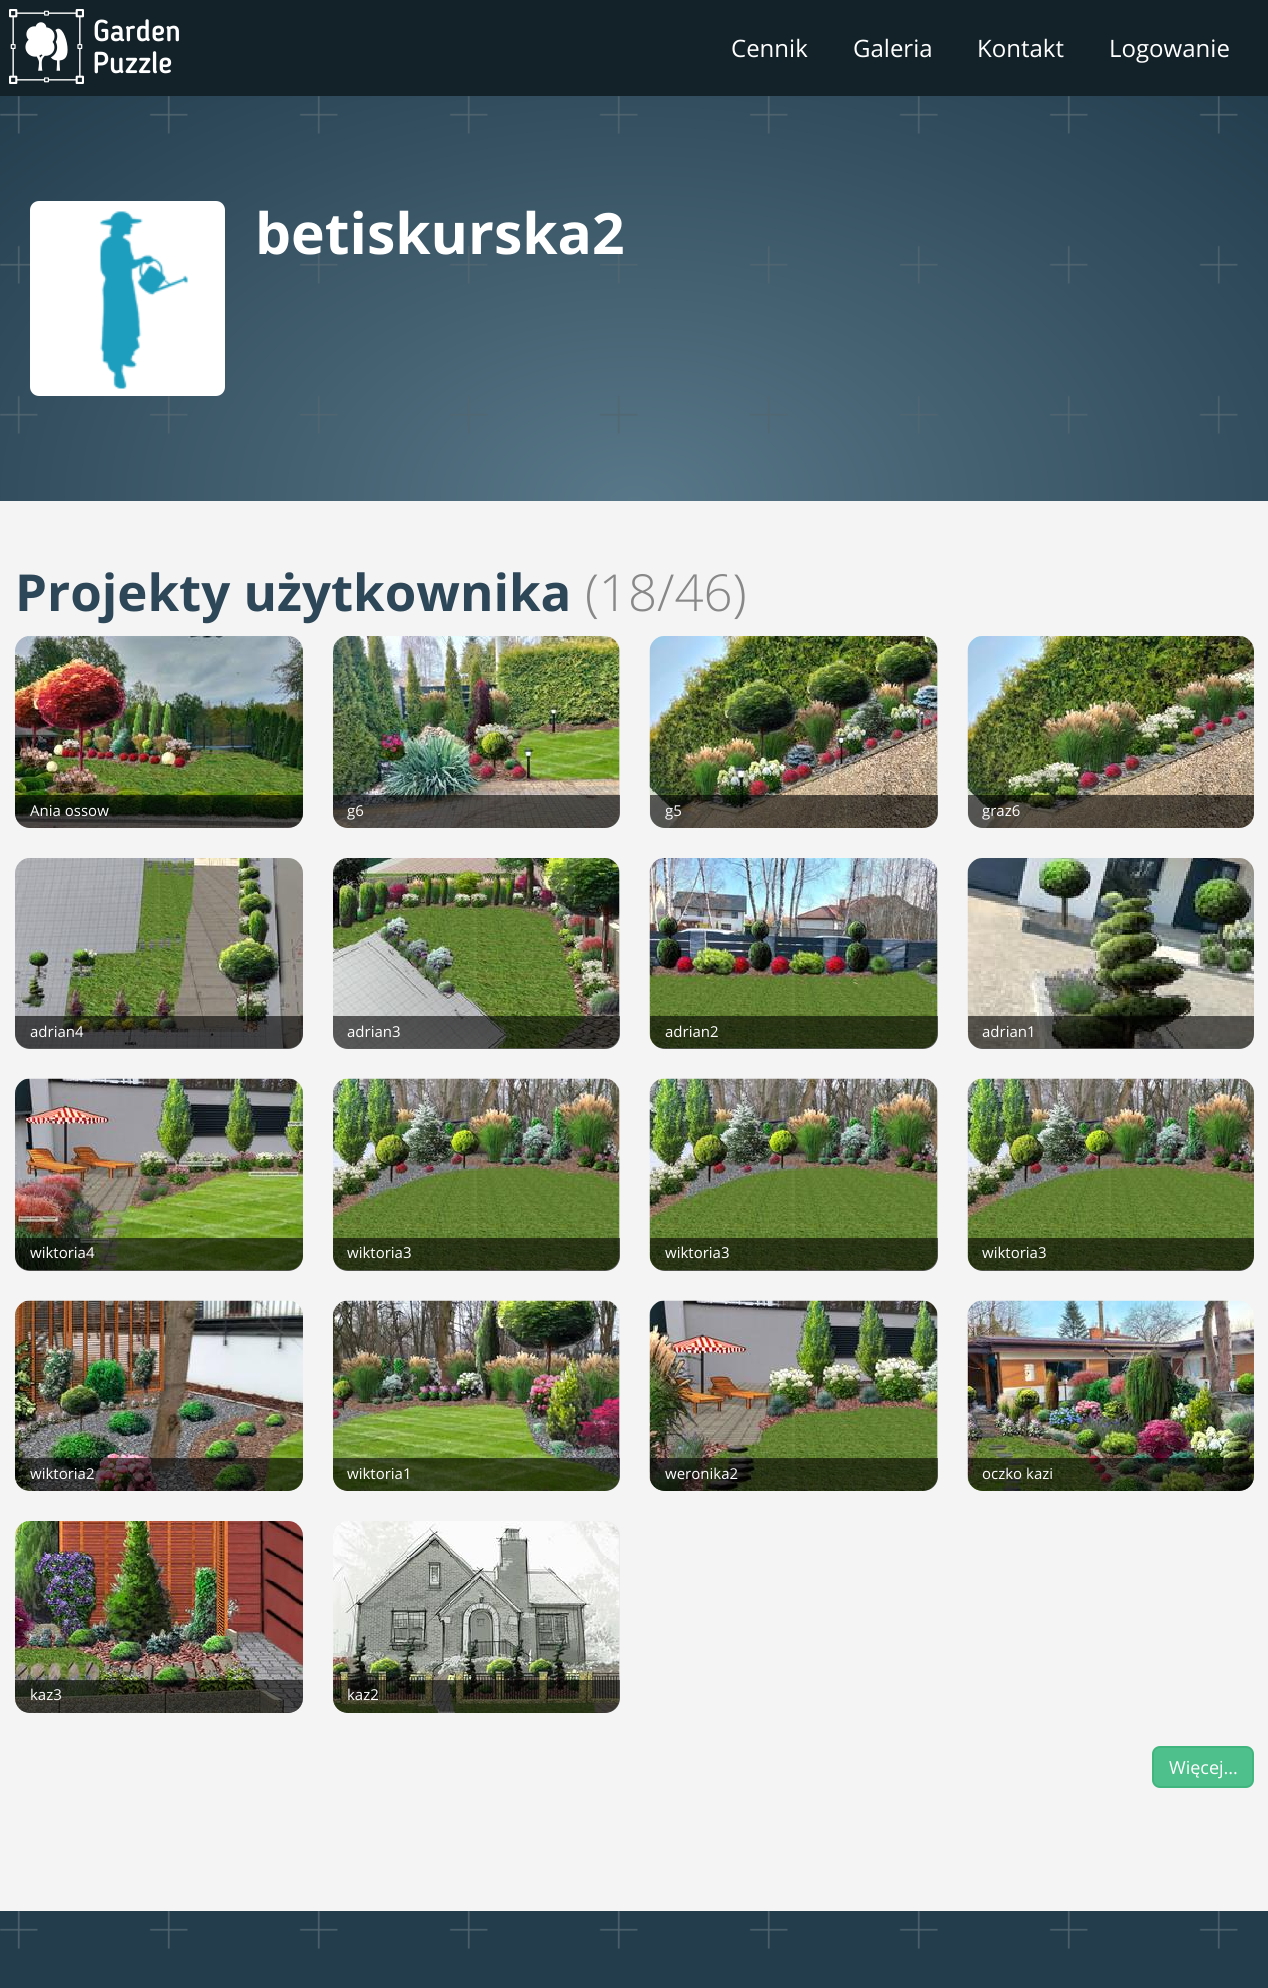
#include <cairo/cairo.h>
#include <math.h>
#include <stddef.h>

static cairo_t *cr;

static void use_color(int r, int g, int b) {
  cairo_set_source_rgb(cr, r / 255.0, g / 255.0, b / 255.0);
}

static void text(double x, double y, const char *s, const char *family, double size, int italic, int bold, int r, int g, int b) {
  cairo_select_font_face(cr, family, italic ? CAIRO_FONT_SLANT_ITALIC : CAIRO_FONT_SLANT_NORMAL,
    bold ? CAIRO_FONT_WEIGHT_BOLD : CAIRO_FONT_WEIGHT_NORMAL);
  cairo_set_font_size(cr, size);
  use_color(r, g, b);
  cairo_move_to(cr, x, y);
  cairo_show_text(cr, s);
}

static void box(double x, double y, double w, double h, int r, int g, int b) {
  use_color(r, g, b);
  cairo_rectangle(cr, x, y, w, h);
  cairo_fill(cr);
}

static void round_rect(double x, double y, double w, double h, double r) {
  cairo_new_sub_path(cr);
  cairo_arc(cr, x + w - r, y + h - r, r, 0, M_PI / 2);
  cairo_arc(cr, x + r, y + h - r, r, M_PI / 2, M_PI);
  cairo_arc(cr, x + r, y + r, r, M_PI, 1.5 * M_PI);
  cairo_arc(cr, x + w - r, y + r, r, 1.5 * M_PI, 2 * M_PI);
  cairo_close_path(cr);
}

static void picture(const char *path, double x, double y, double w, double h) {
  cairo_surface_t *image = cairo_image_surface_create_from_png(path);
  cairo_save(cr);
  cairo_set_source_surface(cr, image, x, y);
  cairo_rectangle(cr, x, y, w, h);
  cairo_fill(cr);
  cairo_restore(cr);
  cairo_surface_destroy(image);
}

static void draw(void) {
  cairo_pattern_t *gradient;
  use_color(255, 255, 255);
  cairo_paint(cr);
  box(0, 0, 1268, 96, 19, 34, 41);
  picture("img_01.png", 9, 9, 170, 75);
  gradient = cairo_pattern_create_radial(0, 0, 0, 0, 0, 1);
  cairo_pattern_set_matrix(gradient, &(cairo_matrix_t){1.0 / 897, 0, 0, 1.0 / 573, -1.0 * 635 / 897, -1.0 * 501 / 573});
  cairo_pattern_add_color_stop_rgba(gradient, 0, 0.345, 0.467, 0.533, 1);
  cairo_pattern_add_color_stop_rgba(gradient, 1, 0.137, 0.239, 0.302, 1);
  cairo_set_source(cr, gradient);
  cairo_pattern_destroy(gradient);
  cairo_rectangle(cr, 0, 96, 1268, 405);
  cairo_fill(cr);
  picture("img_02.png", 0, 96, 1238, 338);
  use_color(255, 255, 255);
  round_rect(30, 201, 195, 195, 9);
  cairo_fill(cr);
  picture("img_03.png", 100, 211, 88, 178);
  box(0, 501, 1268, 1410, 244, 244, 244);
  use_color(234, 234, 234);
  round_rect(15, 636, 288, 192, 15);
  cairo_fill(cr);
  picture("img_04.png", 15, 636, 288, 192);
  cairo_set_source_rgba(cr, 0, 0, 0, 0.6);
  cairo_new_path(cr);
  cairo_move_to(cr, 15, 795);
  cairo_line_to(cr, 303, 795);
  cairo_line_to(cr, 303, 813);
  cairo_curve_to(cr, 303, 821.5, 296.5, 828, 288, 828);
  cairo_line_to(cr, 30, 828);
  cairo_curve_to(cr, 21.5, 828, 15, 821.5, 15, 813);
  cairo_close_path(cr);
  cairo_fill(cr);
  use_color(234, 234, 234);
  round_rect(333, 636, 287, 192, 15);
  cairo_fill(cr);
  picture("img_05.png", 333, 636, 287, 192);
  cairo_set_source_rgba(cr, 0, 0, 0, 0.6);
  cairo_new_path(cr);
  cairo_move_to(cr, 333, 795);
  cairo_line_to(cr, 620, 795);
  cairo_line_to(cr, 620, 813);
  cairo_curve_to(cr, 620, 821.5, 613.5, 828, 605, 828);
  cairo_line_to(cr, 348, 828);
  cairo_curve_to(cr, 339.5, 828, 333, 821.5, 333, 813);
  cairo_close_path(cr);
  cairo_fill(cr);
  use_color(234, 234, 234);
  round_rect(650, 636, 288, 192, 15);
  cairo_fill(cr);
  picture("img_06.png", 649, 636, 289, 192);
  cairo_set_source_rgba(cr, 0, 0, 0, 0.6);
  cairo_new_path(cr);
  cairo_move_to(cr, 650, 795);
  cairo_line_to(cr, 938, 795);
  cairo_line_to(cr, 938, 813);
  cairo_curve_to(cr, 938, 821.5, 931.5, 828, 923, 828);
  cairo_line_to(cr, 665, 828);
  cairo_curve_to(cr, 656.5, 828, 650, 821.5, 650, 813);
  cairo_close_path(cr);
  cairo_fill(cr);
  use_color(234, 234, 234);
  round_rect(968, 636, 286, 192, 15);
  cairo_fill(cr);
  picture("img_07.png", 967, 636, 287, 192);
  cairo_set_source_rgba(cr, 0, 0, 0, 0.6);
  cairo_new_path(cr);
  cairo_move_to(cr, 968, 795);
  cairo_line_to(cr, 1254, 795);
  cairo_line_to(cr, 1254, 813);
  cairo_curve_to(cr, 1254, 821.5, 1247.5, 828, 1239, 828);
  cairo_line_to(cr, 983, 828);
  cairo_curve_to(cr, 974.5, 828, 968, 821.5, 968, 813);
  cairo_close_path(cr);
  cairo_fill(cr);
  use_color(234, 234, 234);
  round_rect(15, 858, 288, 191, 15);
  cairo_fill(cr);
  picture("img_08.png", 15, 858, 288, 191);
  cairo_set_source_rgba(cr, 0, 0, 0, 0.6);
  cairo_new_path(cr);
  cairo_move_to(cr, 15, 1016);
  cairo_line_to(cr, 303, 1016);
  cairo_line_to(cr, 303, 1034);
  cairo_curve_to(cr, 303, 1042.5, 296.5, 1049, 288, 1049);
  cairo_line_to(cr, 30, 1049);
  cairo_curve_to(cr, 21.5, 1049, 15, 1042.5, 15, 1034);
  cairo_close_path(cr);
  cairo_fill(cr);
  use_color(234, 234, 234);
  round_rect(333, 858, 287, 191, 15);
  cairo_fill(cr);
  picture("img_09.png", 333, 858, 287, 191);
  cairo_set_source_rgba(cr, 0, 0, 0, 0.6);
  cairo_new_path(cr);
  cairo_move_to(cr, 333, 1016);
  cairo_line_to(cr, 620, 1016);
  cairo_line_to(cr, 620, 1034);
  cairo_curve_to(cr, 620, 1042.5, 613.5, 1049, 605, 1049);
  cairo_line_to(cr, 348, 1049);
  cairo_curve_to(cr, 339.5, 1049, 333, 1042.5, 333, 1034);
  cairo_close_path(cr);
  cairo_fill(cr);
  use_color(234, 234, 234);
  round_rect(650, 858, 288, 191, 15);
  cairo_fill(cr);
  picture("img_10.png", 649, 858, 289, 191);
  cairo_set_source_rgba(cr, 0, 0, 0, 0.6);
  cairo_new_path(cr);
  cairo_move_to(cr, 650, 1016);
  cairo_line_to(cr, 938, 1016);
  cairo_line_to(cr, 938, 1034);
  cairo_curve_to(cr, 938, 1042.5, 931.5, 1049, 923, 1049);
  cairo_line_to(cr, 665, 1049);
  cairo_curve_to(cr, 656.5, 1049, 650, 1042.5, 650, 1034);
  cairo_close_path(cr);
  cairo_fill(cr);
  use_color(234, 234, 234);
  round_rect(968, 858, 286, 191, 15);
  cairo_fill(cr);
  picture("img_11.png", 967, 858, 287, 191);
  cairo_set_source_rgba(cr, 0, 0, 0, 0.6);
  cairo_new_path(cr);
  cairo_move_to(cr, 968, 1016);
  cairo_line_to(cr, 1254, 1016);
  cairo_line_to(cr, 1254, 1034);
  cairo_curve_to(cr, 1254, 1042.5, 1247.5, 1049, 1239, 1049);
  cairo_line_to(cr, 983, 1049);
  cairo_curve_to(cr, 974.5, 1049, 968, 1042.5, 968, 1034);
  cairo_close_path(cr);
  cairo_fill(cr);
  use_color(234, 234, 234);
  round_rect(15, 1079, 288, 192, 15);
  cairo_fill(cr);
  picture("img_12.png", 15, 1078, 288, 193);
  cairo_set_source_rgba(cr, 0, 0, 0, 0.6);
  cairo_new_path(cr);
  cairo_move_to(cr, 15, 1238);
  cairo_line_to(cr, 303, 1238);
  cairo_line_to(cr, 303, 1256);
  cairo_curve_to(cr, 303, 1264.5, 296.5, 1271, 288, 1271);
  cairo_line_to(cr, 30, 1271);
  cairo_curve_to(cr, 21.5, 1271, 15, 1264.5, 15, 1256);
  cairo_close_path(cr);
  cairo_fill(cr);
  use_color(234, 234, 234);
  round_rect(333, 1079, 287, 192, 15);
  cairo_fill(cr);
  picture("img_13.png", 333, 1078, 287, 193);
  cairo_set_source_rgba(cr, 0, 0, 0, 0.6);
  cairo_new_path(cr);
  cairo_move_to(cr, 333, 1238);
  cairo_line_to(cr, 620, 1238);
  cairo_line_to(cr, 620, 1256);
  cairo_curve_to(cr, 620, 1264.5, 613.5, 1271, 605, 1271);
  cairo_line_to(cr, 348, 1271);
  cairo_curve_to(cr, 339.5, 1271, 333, 1264.5, 333, 1256);
  cairo_close_path(cr);
  cairo_fill(cr);
  use_color(234, 234, 234);
  round_rect(650, 1079, 288, 192, 15);
  cairo_fill(cr);
  picture("img_14.png", 649, 1078, 289, 193);
  cairo_set_source_rgba(cr, 0, 0, 0, 0.6);
  cairo_new_path(cr);
  cairo_move_to(cr, 650, 1238);
  cairo_line_to(cr, 938, 1238);
  cairo_line_to(cr, 938, 1256);
  cairo_curve_to(cr, 938, 1264.5, 931.5, 1271, 923, 1271);
  cairo_line_to(cr, 665, 1271);
  cairo_curve_to(cr, 656.5, 1271, 650, 1264.5, 650, 1256);
  cairo_close_path(cr);
  cairo_fill(cr);
  use_color(234, 234, 234);
  round_rect(968, 1079, 286, 192, 15);
  cairo_fill(cr);
  picture("img_15.png", 967, 1078, 287, 193);
  cairo_set_source_rgba(cr, 0, 0, 0, 0.6);
  cairo_new_path(cr);
  cairo_move_to(cr, 968, 1238);
  cairo_line_to(cr, 1254, 1238);
  cairo_line_to(cr, 1254, 1256);
  cairo_curve_to(cr, 1254, 1264.5, 1247.5, 1271, 1239, 1271);
  cairo_line_to(cr, 983, 1271);
  cairo_curve_to(cr, 974.5, 1271, 968, 1264.5, 968, 1256);
  cairo_close_path(cr);
  cairo_fill(cr);
  use_color(234, 234, 234);
  round_rect(15, 1301, 288, 190, 15);
  cairo_fill(cr);
  picture("img_16.png", 15, 1300, 288, 191);
  cairo_set_source_rgba(cr, 0, 0, 0, 0.6);
  cairo_new_path(cr);
  cairo_move_to(cr, 15, 1458);
  cairo_line_to(cr, 303, 1458);
  cairo_line_to(cr, 303, 1476);
  cairo_curve_to(cr, 303, 1484.5, 296.5, 1491, 288, 1491);
  cairo_line_to(cr, 30, 1491);
  cairo_curve_to(cr, 21.5, 1491, 15, 1484.5, 15, 1476);
  cairo_close_path(cr);
  cairo_fill(cr);
  use_color(234, 234, 234);
  round_rect(333, 1301, 287, 190, 15);
  cairo_fill(cr);
  picture("img_17.png", 333, 1300, 287, 191);
  cairo_set_source_rgba(cr, 0, 0, 0, 0.6);
  cairo_new_path(cr);
  cairo_move_to(cr, 333, 1458);
  cairo_line_to(cr, 620, 1458);
  cairo_line_to(cr, 620, 1476);
  cairo_curve_to(cr, 620, 1484.5, 613.5, 1491, 605, 1491);
  cairo_line_to(cr, 348, 1491);
  cairo_curve_to(cr, 339.5, 1491, 333, 1484.5, 333, 1476);
  cairo_close_path(cr);
  cairo_fill(cr);
  use_color(234, 234, 234);
  round_rect(650, 1301, 288, 190, 15);
  cairo_fill(cr);
  picture("img_18.png", 649, 1300, 289, 191);
  cairo_set_source_rgba(cr, 0, 0, 0, 0.6);
  cairo_new_path(cr);
  cairo_move_to(cr, 650, 1458);
  cairo_line_to(cr, 938, 1458);
  cairo_line_to(cr, 938, 1476);
  cairo_curve_to(cr, 938, 1484.5, 931.5, 1491, 923, 1491);
  cairo_line_to(cr, 665, 1491);
  cairo_curve_to(cr, 656.5, 1491, 650, 1484.5, 650, 1476);
  cairo_close_path(cr);
  cairo_fill(cr);
  use_color(234, 234, 234);
  round_rect(968, 1301, 286, 190, 15);
  cairo_fill(cr);
  picture("img_19.png", 967, 1300, 287, 191);
  cairo_set_source_rgba(cr, 0, 0, 0, 0.6);
  cairo_new_path(cr);
  cairo_move_to(cr, 968, 1458);
  cairo_line_to(cr, 1254, 1458);
  cairo_line_to(cr, 1254, 1476);
  cairo_curve_to(cr, 1254, 1484.5, 1247.5, 1491, 1239, 1491);
  cairo_line_to(cr, 983, 1491);
  cairo_curve_to(cr, 974.5, 1491, 968, 1484.5, 968, 1476);
  cairo_close_path(cr);
  cairo_fill(cr);
  use_color(234, 234, 234);
  round_rect(15, 1521, 288, 192, 15);
  cairo_fill(cr);
  picture("img_20.png", 15, 1521, 288, 192);
  cairo_set_source_rgba(cr, 0, 0, 0, 0.6);
  cairo_new_path(cr);
  cairo_move_to(cr, 15, 1680);
  cairo_line_to(cr, 303, 1680);
  cairo_line_to(cr, 303, 1698);
  cairo_curve_to(cr, 303, 1706.5, 296.5, 1713, 288, 1713);
  cairo_line_to(cr, 30, 1713);
  cairo_curve_to(cr, 21.5, 1713, 15, 1706.5, 15, 1698);
  cairo_close_path(cr);
  cairo_fill(cr);
  use_color(234, 234, 234);
  round_rect(333, 1521, 287, 192, 15);
  cairo_fill(cr);
  picture("img_21.png", 333, 1521, 287, 192);
  cairo_set_source_rgba(cr, 0, 0, 0, 0.6);
  cairo_new_path(cr);
  cairo_move_to(cr, 333, 1680);
  cairo_line_to(cr, 620, 1680);
  cairo_line_to(cr, 620, 1698);
  cairo_curve_to(cr, 620, 1706.5, 613.5, 1713, 605, 1713);
  cairo_line_to(cr, 348, 1713);
  cairo_curve_to(cr, 339.5, 1713, 333, 1706.5, 333, 1698);
  cairo_close_path(cr);
  cairo_fill(cr);
  use_color(77, 192, 139);
  round_rect(1153, 1747, 100, 40, 7);
  cairo_fill_preserve(cr);
  use_color(64, 181, 126);
  cairo_stroke(cr);
  box(0, 1911, 1268, 77, 35, 61, 77);
  picture("img_22.png", 0, 1911, 1238, 38);
  text(731, 57, "Cennik", "Open Sans", 24, 0, 0, 255, 255, 255);
  text(853, 57, "Galeria", "Open Sans", 24, 0, 0, 255, 255, 255);
  text(977, 57, "Kontakt", "Open Sans", 24, 0, 0, 255, 255, 255);
  text(1109, 57, "Logowanie", "Open Sans", 24, 0, 0, 255, 255, 255);
  text(255, 254, "betiskurska2", "Open Sans", 57, 0, 1, 255, 255, 255);
  text(15, 611, "Projekty użytkownika", "Open Sans", 51, 0, 1, 46, 71, 88);
  text(585, 611, "(18/46)", "Open Sans Light", 51, 0, 0, 136, 136, 136);
  text(30, 816, "Ania ossow", "Open Sans", 15, 0, 0, 255, 255, 255);
  text(347, 816, "g6", "Open Sans", 15, 0, 0, 255, 255, 255);
  text(665, 816, "g5", "Open Sans", 15, 0, 0, 255, 255, 255);
  text(982, 816, "graz6", "Open Sans", 15, 0, 0, 255, 255, 255);
  text(30, 1037, "adrian4", "Open Sans", 15, 0, 0, 255, 255, 255);
  text(347, 1037, "adrian3", "Open Sans", 15, 0, 0, 255, 255, 255);
  text(665, 1037, "adrian2", "Open Sans", 15, 0, 0, 255, 255, 255);
  text(982, 1037, "adrian1", "Open Sans", 15, 0, 0, 255, 255, 255);
  text(30, 1258, "wiktoria4", "Open Sans", 15, 0, 0, 255, 255, 255);
  text(347, 1258, "wiktoria3", "Open Sans", 15, 0, 0, 255, 255, 255);
  text(665, 1258, "wiktoria3", "Open Sans", 15, 0, 0, 255, 255, 255);
  text(982, 1258, "wiktoria3", "Open Sans", 15, 0, 0, 255, 255, 255);
  text(30, 1479, "wiktoria2", "Open Sans", 15, 0, 0, 255, 255, 255);
  text(347, 1479, "wiktoria1", "Open Sans", 15, 0, 0, 255, 255, 255);
  text(665, 1479, "weronika2", "Open Sans", 15, 0, 0, 255, 255, 255);
  text(982, 1479, "oczko kazi", "Open Sans", 15, 0, 0, 255, 255, 255);
  text(30, 1700, "kaz3", "Open Sans", 15, 0, 0, 255, 255, 255);
  text(347, 1700, "kaz2", "Open Sans", 15, 0, 0, 255, 255, 255);
  text(1169, 1774, "Więcej...", "Open Sans", 18, 0, 0, 255, 255, 255);
}

int main(void) {
  cairo_surface_t *surface = cairo_image_surface_create(CAIRO_FORMAT_RGB24, 1268, 1988);
  cr = cairo_create(surface);
  cairo_font_options_t *options = cairo_font_options_create();
  cairo_font_options_set_hint_metrics(options, CAIRO_HINT_METRICS_OFF);
  cairo_font_options_set_hint_style(options, CAIRO_HINT_STYLE_NONE);
  cairo_set_font_options(cr, options);
  cairo_set_miter_limit(cr, 4);
  draw();
  cairo_surface_write_to_png(surface, "out.png");
  cairo_font_options_destroy(options);
  cairo_destroy(cr);
  cairo_surface_destroy(surface);
  return 0;
}
